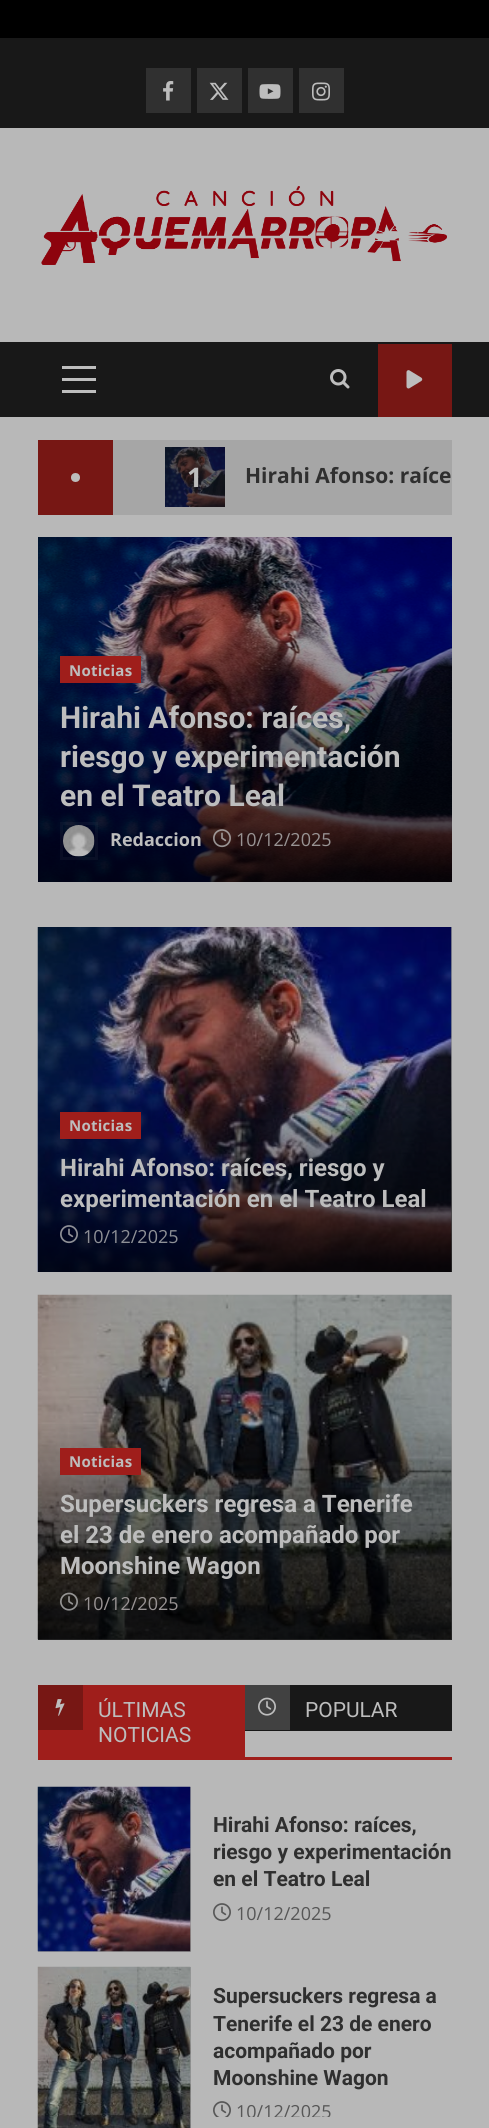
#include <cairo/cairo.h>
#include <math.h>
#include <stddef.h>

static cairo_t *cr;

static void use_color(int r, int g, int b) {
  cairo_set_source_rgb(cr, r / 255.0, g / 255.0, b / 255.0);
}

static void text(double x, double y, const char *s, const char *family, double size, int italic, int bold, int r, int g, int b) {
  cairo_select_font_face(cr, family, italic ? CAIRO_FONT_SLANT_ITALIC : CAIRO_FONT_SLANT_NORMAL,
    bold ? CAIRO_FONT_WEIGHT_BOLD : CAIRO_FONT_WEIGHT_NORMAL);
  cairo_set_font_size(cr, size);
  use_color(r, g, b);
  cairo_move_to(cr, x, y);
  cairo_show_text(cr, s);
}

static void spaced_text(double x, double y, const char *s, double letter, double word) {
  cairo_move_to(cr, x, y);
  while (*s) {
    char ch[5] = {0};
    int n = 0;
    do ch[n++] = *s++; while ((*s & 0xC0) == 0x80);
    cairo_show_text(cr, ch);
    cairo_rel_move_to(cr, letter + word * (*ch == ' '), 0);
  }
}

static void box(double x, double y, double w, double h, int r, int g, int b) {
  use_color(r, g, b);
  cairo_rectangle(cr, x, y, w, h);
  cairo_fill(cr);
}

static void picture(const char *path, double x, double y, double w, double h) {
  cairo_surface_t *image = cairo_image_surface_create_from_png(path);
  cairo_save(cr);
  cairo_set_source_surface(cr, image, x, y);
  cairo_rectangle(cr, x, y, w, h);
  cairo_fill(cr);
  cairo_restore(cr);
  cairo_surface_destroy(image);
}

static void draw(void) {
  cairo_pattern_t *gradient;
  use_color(0, 0, 0);
  cairo_paint(cr);
  box(0, 128, 489, 2000, 184, 184, 184);
  box(0, 38, 489, 90, 24, 24, 24);
  box(146, 68, 45, 45, 48, 48, 48);
  picture("img_01.png", 163, 81, 11, 20);
  box(197, 68, 45, 45, 48, 48, 48);
  picture("img_02.png", 209, 82, 20, 18);
  box(248, 68, 45, 45, 48, 48, 48);
  picture("img_03.png", 259, 84, 22, 15);
  box(299, 68, 45, 45, 48, 48, 48);
  picture("img_04.png", 312, 82, 18, 19);
  picture("img_05.png", 41, 186, 406, 79);
  box(0, 342, 489, 75, 24, 24, 24);
  box(62, 378, 34, 3, 189, 189, 189);
  box(62, 366, 34, 3, 189, 189, 189);
  box(62, 390, 34, 3, 189, 189, 189);
  picture("img_06.png", 330, 369, 20, 20);
  box(378, 344, 74, 73, 119, 23, 20);
  picture("img_07.png", 406, 370, 17, 19);
  box(38, 440, 75, 75, 119, 23, 20);
  use_color(189, 189, 189);
  cairo_arc(cr, 75.5, 477.5, 4.5, 0, 2 * M_PI);
  cairo_fill(cr);
  box(113, 440, 339, 75, 166, 166, 166);
  picture("img_08.png", 165, 447, 60, 60);
  picture("img_09.png", 38, 537, 414, 345);
  box(60, 656, 81, 27, 159, 30, 27);
  cairo_rectangle(cr, 61.5, 823.5, 35, 35);
  cairo_set_source_rgba(cr, 0.741, 0.741, 0.741, 0.05);
  cairo_set_line_width(cr, 3);
  cairo_stroke(cr);
  picture("img_10.png", 63, 825, 32, 32);
  picture("img_11.png", 213, 829, 18, 19);
  box(451, 927, 1, 345, 151, 151, 151);
  picture("img_12.png", 37, 927, 415, 345);
  gradient = cairo_pattern_create_linear(245, 1082, 245, 1272);
  cairo_pattern_add_color_stop_rgba(gradient, 0, 0, 0, 0, 0);
  cairo_pattern_add_color_stop_rgba(gradient, 1, 0, 0, 0, 0.75);
  cairo_set_source(cr, gradient);
  cairo_pattern_destroy(gradient);
  cairo_rectangle(cr, 38, 1087, 414, 185);
  cairo_fill(cr);
  box(60, 1112, 81, 27, 159, 30, 27);
  picture("img_13.png", 60, 1225, 18, 19);
  box(38, 1295, 414, 345, 151, 151, 151);
  picture("img_14.png", 37, 1294, 415, 346);
  gradient = cairo_pattern_create_linear(245, 1418, 245, 1640);
  cairo_pattern_add_color_stop_rgba(gradient, 0, 0, 0, 0, 0);
  cairo_pattern_add_color_stop_rgba(gradient, 1, 0, 0, 0, 0.75);
  cairo_set_source(cr, gradient);
  cairo_pattern_destroy(gradient);
  cairo_rectangle(cr, 38, 1424, 414, 216);
  cairo_fill(cr);
  box(60, 1448, 81, 27, 159, 30, 27);
  picture("img_15.png", 60, 1592, 18, 19);
  box(38, 1757, 414, 3, 159, 30, 27);
  box(38, 1685, 207, 72, 159, 30, 27);
  box(38, 1685, 45, 45, 119, 23, 20);
  picture("img_16.png", 55, 1699, 10, 17);
  box(245, 1685, 207, 46, 24, 24, 24);
  box(245, 1685, 45, 45, 65, 65, 65);
  picture("img_17.png", 258, 1697, 18, 19);
  box(38, 1787, 153, 165, 151, 151, 151);
  picture("img_18.png", 37, 1786, 154, 166);
  picture("img_19.png", 213, 1903, 18, 19);
  box(190, 1967, 1, 161, 151, 151, 151);
  picture("img_20.png", 37, 1966, 154, 162);
  picture("img_21.png", 213, 2101, 18, 16);
  text(187, 487, "1", "Open Sans", 27, 0, 1, 189, 189, 189);
  text(245, 483, "Hirahi Afonso: raíce", "Open Sans", 21, 0, 1, 47, 47, 47);
  cairo_set_font_size(cr, 15);
  use_color(189, 189, 189);
  spaced_text(69, 676, "Noticias", 0.25, 0);
  text(60, 728, "Hirahi Afonso: raíces,", "Roboto", 30, 0, 1, 189, 189, 189);
  text(60, 767, "riesgo y experimentación", "Roboto", 30, 0, 1, 189, 189, 189);
  text(60, 806, "en el Teatro Leal", "Roboto", 30, 0, 1, 189, 189, 189);
  text(110, 846, "Redaccion", "Open Sans", 18, 0, 1, 189, 189, 189);
  text(236, 846, "10/12/2025", "Open Sans", 18, 0, 0, 152, 147, 147);
  cairo_select_font_face(cr, "Open Sans", CAIRO_FONT_SLANT_NORMAL, CAIRO_FONT_WEIGHT_BOLD);
  cairo_set_font_size(cr, 15);
  use_color(189, 189, 189);
  spaced_text(69, 1131, "Noticias", 0.25, 0);
  text(60, 1176, "Hirahi Afonso: raíces, riesgo y", "Roboto", 24, 0, 1, 189, 189, 189);
  text(60, 1207, "experimentación en el Teatro Leal", "Roboto", 24, 0, 1, 189, 189, 189);
  text(83, 1243, "10/12/2025", "Open Sans", 18, 0, 0, 142, 144, 150);
  cairo_select_font_face(cr, "Open Sans", CAIRO_FONT_SLANT_NORMAL, CAIRO_FONT_WEIGHT_BOLD);
  cairo_set_font_size(cr, 15);
  use_color(189, 189, 189);
  spaced_text(69, 1467, "Noticias", 0.25, 0);
  text(60, 1512, "Supersuckers regresa a Tenerife", "Roboto", 24, 0, 1, 189, 189, 189);
  text(60, 1543, "el 23 de enero acompañado por", "Roboto", 24, 0, 1, 189, 189, 189);
  text(60, 1574, "Moonshine Wagon", "Roboto", 24, 0, 1, 189, 189, 189);
  text(83, 1610, "10/12/2025", "Open Sans", 18, 0, 0, 152, 147, 147);
  text(98, 1717, "ÚLTIMAS", "Roboto", 21, 0, 0, 189, 189, 189);
  text(98, 1742, "NOTICIAS", "Roboto", 21, 0, 0, 189, 189, 189);
  text(305, 1717, "POPULAR", "Roboto", 21, 0, 0, 189, 189, 189);
  text(213, 1832, "Hirahi Afonso: raíces,", "Roboto", 21, 0, 1, 47, 47, 47);
  text(213, 1859, "riesgo y experimentación", "Roboto", 21, 0, 1, 47, 47, 47);
  text(213, 1886, "en el Teatro Leal", "Roboto", 21, 0, 1, 47, 47, 47);
  text(236, 1920, "10/12/2025", "Open Sans", 18, 0, 0, 87, 87, 87);
  text(213, 2003, "Supersuckers regresa a", "Roboto", 21, 0, 1, 47, 47, 47);
  text(213, 2031, "Tenerife el 23 de enero", "Roboto", 21, 0, 1, 47, 47, 47);
  text(213, 2058, "acompañado por", "Roboto", 21, 0, 1, 47, 47, 47);
  text(213, 2085, "Moonshine Wagon", "Roboto", 21, 0, 1, 47, 47, 47);
  cairo_save(cr);
  cairo_rectangle(cr, 191, 1983, 261, 134);
  cairo_clip(cr);
  text(236, 2118, "10/12/2025", "Open Sans", 18, 0, 0, 87, 87, 87);
  cairo_restore(cr);
}

int main(void) {
  cairo_surface_t *surface = cairo_image_surface_create(CAIRO_FORMAT_RGB24, 489, 2128);
  cr = cairo_create(surface);
  cairo_font_options_t *options = cairo_font_options_create();
  cairo_font_options_set_hint_metrics(options, CAIRO_HINT_METRICS_OFF);
  cairo_font_options_set_hint_style(options, CAIRO_HINT_STYLE_NONE);
  cairo_set_font_options(cr, options);
  cairo_set_miter_limit(cr, 4);
  draw();
  cairo_surface_write_to_png(surface, "out.png");
  cairo_font_options_destroy(options);
  cairo_destroy(cr);
  cairo_surface_destroy(surface);
  return 0;
}
